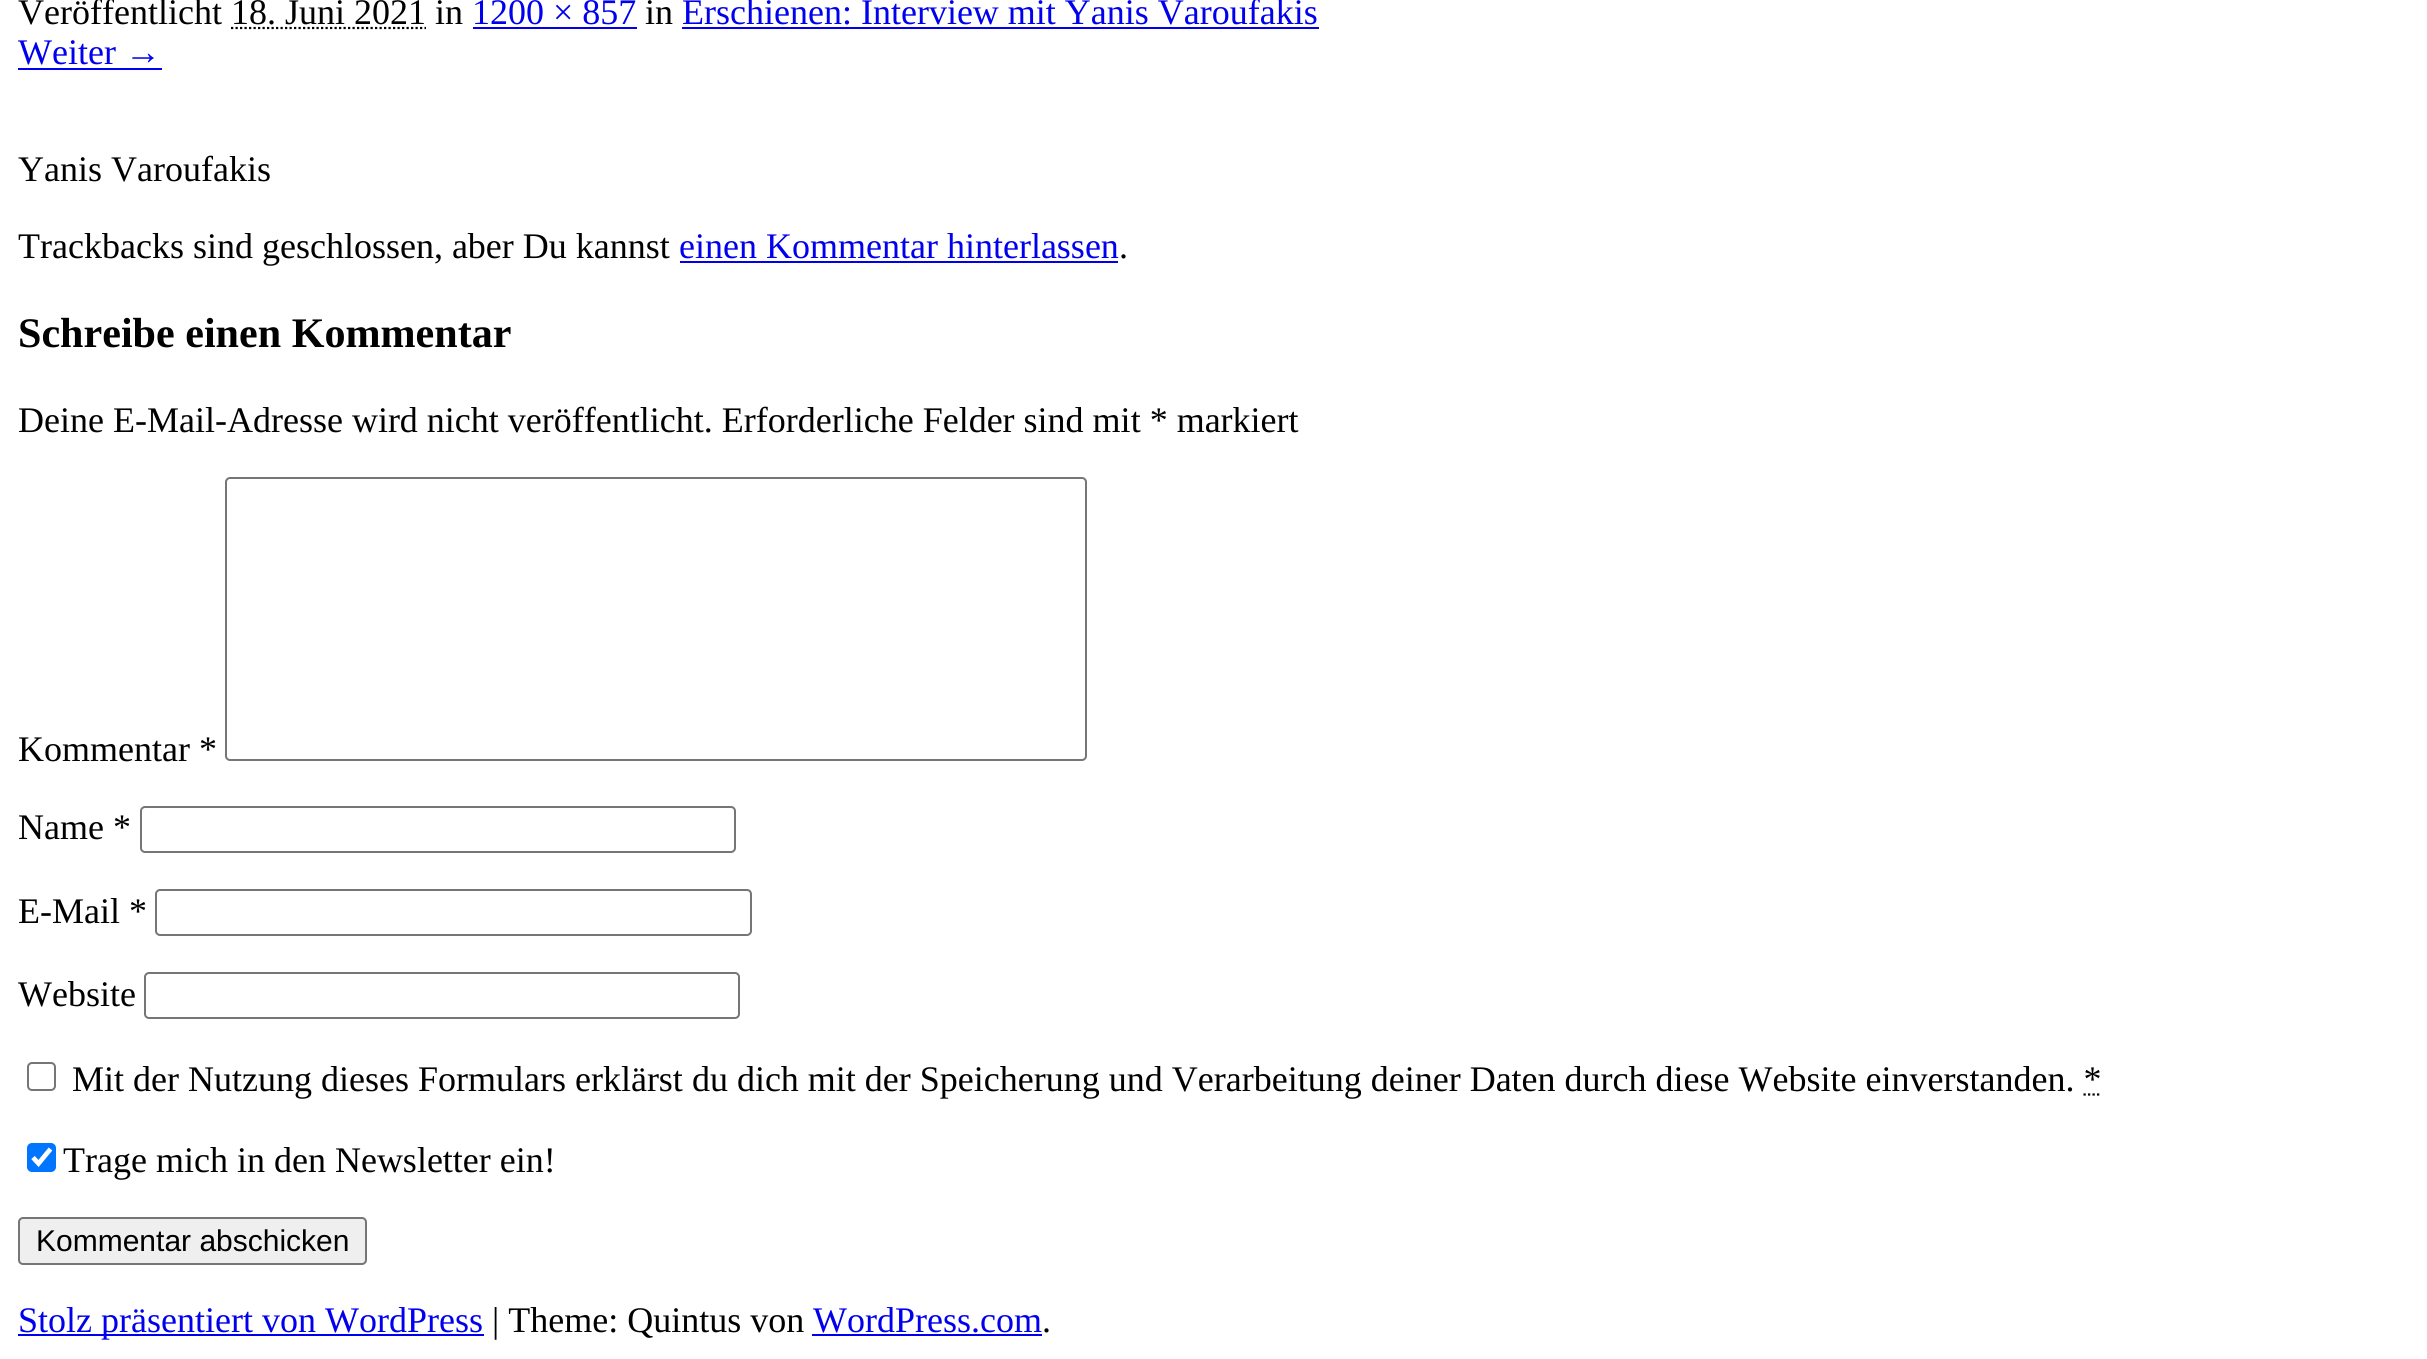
#include <cairo/cairo.h>
#include <math.h>
#include <stddef.h>

static cairo_t *cr;

static void use_color(int r, int g, int b) {
  cairo_set_source_rgb(cr, r / 255.0, g / 255.0, b / 255.0);
}

static void text(double x, double y, const char *s, const char *family, double size, int italic, int bold, int r, int g, int b) {
  cairo_select_font_face(cr, family, italic ? CAIRO_FONT_SLANT_ITALIC : CAIRO_FONT_SLANT_NORMAL,
    bold ? CAIRO_FONT_WEIGHT_BOLD : CAIRO_FONT_WEIGHT_NORMAL);
  cairo_set_font_size(cr, size);
  use_color(r, g, b);
  cairo_move_to(cr, x, y);
  cairo_show_text(cr, s);
}

static void box(double x, double y, double w, double h, int r, int g, int b) {
  use_color(r, g, b);
  cairo_rectangle(cr, x, y, w, h);
  cairo_fill(cr);
}

static void round_rect(double x, double y, double w, double h, double r) {
  cairo_new_sub_path(cr);
  cairo_arc(cr, x + w - r, y + h - r, r, 0, M_PI / 2);
  cairo_arc(cr, x + r, y + h - r, r, M_PI / 2, M_PI);
  cairo_arc(cr, x + r, y + r, r, M_PI, 1.5 * M_PI);
  cairo_arc(cr, x + w - r, y + r, r, 1.5 * M_PI, 2 * M_PI);
  cairo_close_path(cr);
}

static void draw(void) {
  use_color(255, 255, 255);
  cairo_paint(cr);
  box(473, 27, 164, 2, 0, 0, 238);
  box(682, 27, 637, 2, 0, 0, 238);
  cairo_new_path(cr);
  cairo_move_to(cr, 231, 28);
  cairo_line_to(cr, 426, 28);
  use_color(0, 0, 0);
  cairo_set_line_width(cr, 2.2);
  cairo_set_dash(cr, (double[]){2.25, 2.25}, 2, 0);
  cairo_stroke(cr);
  box(18, 68, 144, 2, 0, 0, 238);
  box(680, 261, 438, 2, 0, 0, 238);
  round_rect(226, 478, 860, 282, 4);
  use_color(118, 118, 118);
  cairo_set_line_width(cr, 2);
  cairo_set_dash(cr, NULL, 0, 0);
  cairo_stroke(cr);
  round_rect(141, 807, 594, 45, 4);
  cairo_stroke(cr);
  round_rect(156, 890, 595, 45, 4);
  cairo_stroke(cr);
  round_rect(145, 973, 594, 45, 4);
  cairo_stroke(cr);
  round_rect(28, 1063, 27, 27, 4);
  cairo_stroke(cr);
  cairo_new_path(cr);
  cairo_move_to(cr, 2083.5, 1094.5);
  cairo_line_to(cr, 2101.5, 1094.5);
  use_color(0, 0, 0);
  cairo_set_line_width(cr, 2.2);
  cairo_set_dash(cr, (double[]){2.25, 2.25}, 2, 0);
  cairo_stroke(cr);
  use_color(0, 117, 255);
  round_rect(27, 1143, 29, 29, 5);
  cairo_fill(cr);
  cairo_new_path(cr);
  cairo_move_to(cr, 33, 1157.5);
  cairo_line_to(cr, 38.5, 1163.5);
  cairo_line_to(cr, 50.5, 1149);
  use_color(255, 255, 255);
  cairo_set_line_width(cr, 4.7);
  cairo_set_dash(cr, NULL, 0, 0);
  cairo_stroke(cr);
  use_color(239, 239, 239);
  round_rect(19, 1218, 347, 46, 4);
  cairo_fill_preserve(cr);
  use_color(118, 118, 118);
  cairo_set_line_width(cr, 2);
  cairo_stroke(cr);
  box(18, 1334, 466, 2, 0, 0, 238);
  box(812, 1334, 230, 2, 0, 0, 238);
  text(18, 24, "Veröffentlicht 18. Juni 2021 in", "Liberation Serif", 36, 0, 0, 0, 0, 0);
  text(472, 24, "1200 × 857", "Liberation Serif", 36, 0, 0, 0, 0, 238);
  text(645, 24, "in", "Liberation Serif", 36, 0, 0, 0, 0, 0);
  text(682, 24, "Erschienen: Interview mit Yanis Varoufakis", "Liberation Serif", 36, 0, 0, 0, 0, 238);
  text(18, 64, "Weiter →", "Liberation Serif", 36, 0, 0, 0, 0, 238);
  text(18, 181, "Yanis Varoufakis", "Liberation Serif", 36, 0, 0, 0, 0, 0);
  text(18, 258, "Trackbacks sind geschlossen, aber Du kannst", "Liberation Serif", 36, 0, 0, 0, 0, 0);
  text(679, 258, "einen Kommentar hinterlassen", "Liberation Serif", 36, 0, 0, 0, 0, 238);
  text(1119, 258, ".", "Liberation Serif", 36, 0, 0, 0, 0, 0);
  text(18, 347, "Schreibe einen Kommentar", "Liberation Serif", 42.1, 0, 1, 0, 0, 0);
  text(18, 432, "Deine E-Mail-Adresse wird nicht veröffentlicht. Erforderliche Felder sind mit * markiert", "Liberation Serif", 36, 0, 0, 0, 0, 0);
  text(18, 761, "Kommentar *", "Liberation Serif", 36, 0, 0, 0, 0, 0);
  text(18, 839, "Name *", "Liberation Serif", 36, 0, 0, 0, 0, 0);
  text(18, 923, "E-Mail *", "Liberation Serif", 36, 0, 0, 0, 0, 0);
  text(18, 1006, "Website", "Liberation Serif", 36, 0, 0, 0, 0, 0);
  text(72, 1091, "Mit der Nutzung dieses Formulars erklärst du dich mit der Speicherung und Verarbeitung deiner Daten durch diese Website einverstanden. *", "Liberation Serif", 36, 0, 0, 0, 0, 0);
  text(63, 1172, "Trage mich in den Newsletter ein!", "Liberation Serif", 36, 0, 0, 0, 0, 0);
  text(36, 1251, "Kommentar abschicken", "Liberation Sans", 30, 0, 0, 0, 0, 0);
  text(18, 1332, "Stolz präsentiert von WordPress", "Liberation Serif", 36, 0, 0, 0, 0, 238);
  text(492, 1332, "| Theme: Quintus von", "Liberation Serif", 36, 0, 0, 0, 0, 0);
  text(813, 1332, "WordPress.com", "Liberation Serif", 36, 0, 0, 0, 0, 238);
  text(1042, 1332, ".", "Liberation Serif", 36, 0, 0, 0, 0, 0);
}

int main(void) {
  cairo_surface_t *surface = cairo_image_surface_create(CAIRO_FORMAT_RGB24, 2427, 1359);
  cr = cairo_create(surface);
  cairo_font_options_t *options = cairo_font_options_create();
  cairo_font_options_set_hint_metrics(options, CAIRO_HINT_METRICS_OFF);
  cairo_font_options_set_hint_style(options, CAIRO_HINT_STYLE_NONE);
  cairo_set_font_options(cr, options);
  cairo_set_miter_limit(cr, 4);
  draw();
  cairo_surface_write_to_png(surface, "out.png");
  cairo_font_options_destroy(options);
  cairo_destroy(cr);
  cairo_surface_destroy(surface);
  return 0;
}
